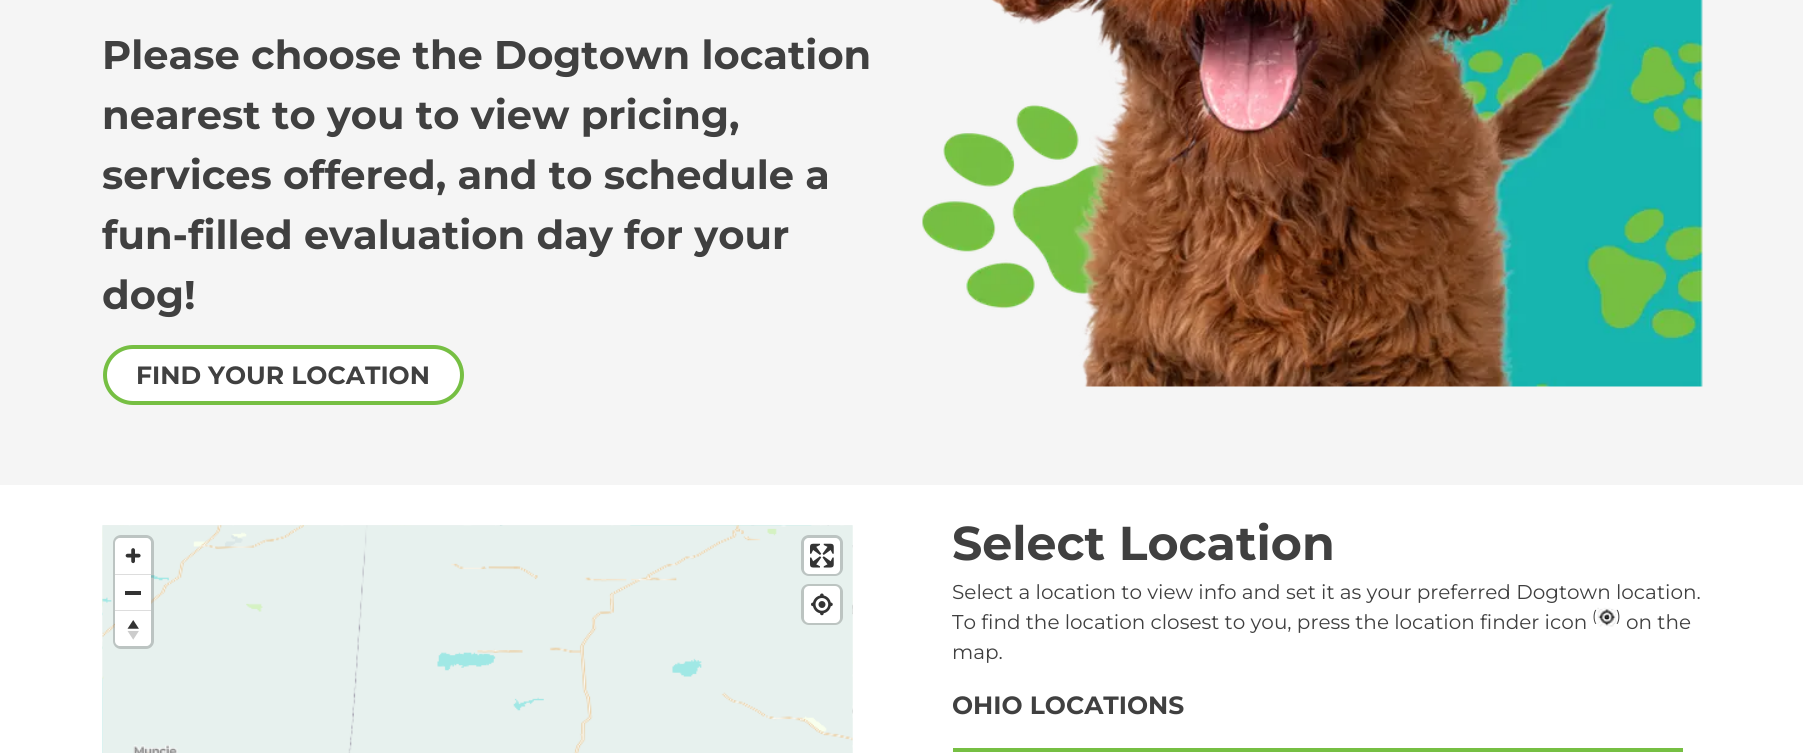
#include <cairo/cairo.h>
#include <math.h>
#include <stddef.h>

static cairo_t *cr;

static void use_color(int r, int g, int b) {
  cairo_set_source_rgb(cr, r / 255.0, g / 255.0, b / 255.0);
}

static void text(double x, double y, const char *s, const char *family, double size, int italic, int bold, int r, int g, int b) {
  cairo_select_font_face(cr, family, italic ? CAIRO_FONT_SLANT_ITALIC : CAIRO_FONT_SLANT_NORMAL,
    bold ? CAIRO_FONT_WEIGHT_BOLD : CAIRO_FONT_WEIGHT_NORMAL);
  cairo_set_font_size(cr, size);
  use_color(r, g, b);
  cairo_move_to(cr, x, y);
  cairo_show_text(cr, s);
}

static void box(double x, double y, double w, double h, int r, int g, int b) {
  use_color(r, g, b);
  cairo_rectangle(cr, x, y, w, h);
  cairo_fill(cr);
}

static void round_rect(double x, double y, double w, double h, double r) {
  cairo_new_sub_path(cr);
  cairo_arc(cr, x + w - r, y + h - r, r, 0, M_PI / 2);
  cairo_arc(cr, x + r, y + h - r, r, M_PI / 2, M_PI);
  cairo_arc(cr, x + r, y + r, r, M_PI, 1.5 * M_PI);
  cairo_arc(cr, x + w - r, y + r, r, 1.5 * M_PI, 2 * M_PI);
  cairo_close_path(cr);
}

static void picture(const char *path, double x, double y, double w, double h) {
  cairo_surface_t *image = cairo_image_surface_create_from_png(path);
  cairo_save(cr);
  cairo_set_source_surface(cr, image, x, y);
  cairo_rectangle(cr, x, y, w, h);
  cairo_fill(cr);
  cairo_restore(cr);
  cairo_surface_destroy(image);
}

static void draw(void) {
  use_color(255, 255, 255);
  cairo_paint(cr);
  box(0, 0, 1803, 485, 245, 245, 245);
  use_color(255, 255, 255);
  round_rect(105, 347, 357, 56, 28);
  cairo_fill_preserve(cr);
  use_color(118, 191, 67);
  cairo_set_line_width(cr, 4);
  cairo_stroke(cr);
  picture("img_01.png", 922, 0, 781, 387);
  picture("img_02.png", 102, 525, 751, 228);
  picture("img_03.png", 102, 525, 751, 228);
  round_rect(114.5, 536.5, 38, 111, 6.5);
  cairo_set_source_rgba(cr, 0, 0, 0, 0.1);
  cairo_set_line_width(cr, 3);
  cairo_stroke(cr);
  round_rect(802.5, 536.5, 39, 38, 6.5);
  cairo_stroke(cr);
  round_rect(802.5, 585.5, 39, 38, 6.5);
  use_color(208, 217, 214);
  cairo_stroke(cr);
  round_rect(114.5, 536.5, 38, 111, 6.5);
  cairo_set_source_rgba(cr, 0, 0, 0, 0.1);
  cairo_stroke(cr);
  use_color(255, 255, 255);
  round_rect(115, 538, 36, 108, 5);
  cairo_fill(cr);
  picture("img_04.png", 125, 548, 16, 16);
  box(115, 574, 36, 1, 221, 221, 221);
  box(125, 591, 16, 4, 51, 51, 51);
  box(115, 610, 36, 1, 221, 221, 221);
  picture("img_05.png", 127, 620, 12, 20);
  round_rect(802.5, 536.5, 39, 38, 6.5);
  cairo_set_source_rgba(cr, 0, 0, 0, 0.1);
  cairo_stroke(cr);
  use_color(255, 255, 255);
  round_rect(804, 538, 36, 36, 5);
  cairo_fill(cr);
  picture("img_06.png", 810, 543, 24, 25);
  round_rect(802.5, 585.5, 39, 38, 6.5);
  cairo_set_source_rgba(cr, 0, 0, 0, 0.1);
  cairo_stroke(cr);
  use_color(255, 255, 255);
  round_rect(804, 586, 36, 37, 5);
  cairo_fill(cr);
  picture("img_07.png", 811, 593, 22, 23);
  picture("img_08.png", 1597, 607, 20, 20);
  box(953, 748, 730, 4, 118, 191, 67);
  text(102, 69, "Please choose the Dogtown location", "Montserrat Thin", 40, 0, 0, 64, 64, 64);
  text(102, 129, "nearest to you to view pricing,", "Montserrat Thin", 40, 0, 0, 64, 64, 64);
  text(102, 189, "services offered, and to schedule a", "Montserrat Thin", 40, 0, 0, 64, 64, 64);
  text(102, 249, "fun-filled evaluation day for your", "Montserrat Thin", 40, 0, 0, 64, 64, 64);
  text(102, 309, "dog!", "Montserrat Thin", 40, 0, 0, 64, 64, 64);
  text(136, 384, "FIND YOUR LOCATION", "Montserrat Thin", 25, 0, 0, 64, 64, 64);
  text(952, 560, "Select Location", "Montserrat Thin", 47.5, 0, 0, 64, 64, 64);
  text(952, 599, "Select a location to view info and set it as your preferred Dogtown location.", "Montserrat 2 Thin", 20, 0, 0, 64, 64, 64);
  text(952, 629, "To find the location closest to you, press the location finder icon", "Montserrat 2 Thin", 20, 0, 0, 64, 64, 64);
  text(1592, 621, "(", "Montserrat 2 Thin", 15, 0, 0, 64, 64, 64);
  text(1616, 621, ")", "Montserrat 2 Thin", 15, 0, 0, 64, 64, 64);
  text(1626, 629, "on the", "Montserrat 2 Thin", 20, 0, 0, 64, 64, 64);
  text(952, 659, "map.", "Montserrat 2 Thin", 20, 0, 0, 64, 64, 64);
  text(952, 714, "OHIO LOCATIONS", "Montserrat Thin", 25, 0, 0, 64, 64, 64);
}

int main(void) {
  cairo_surface_t *surface = cairo_image_surface_create(CAIRO_FORMAT_RGB24, 1803, 753);
  cr = cairo_create(surface);
  cairo_font_options_t *options = cairo_font_options_create();
  cairo_font_options_set_hint_metrics(options, CAIRO_HINT_METRICS_OFF);
  cairo_font_options_set_hint_style(options, CAIRO_HINT_STYLE_NONE);
  cairo_set_font_options(cr, options);
  cairo_set_miter_limit(cr, 4);
  draw();
  cairo_surface_write_to_png(surface, "out.png");
  cairo_font_options_destroy(options);
  cairo_destroy(cr);
  cairo_surface_destroy(surface);
  return 0;
}
